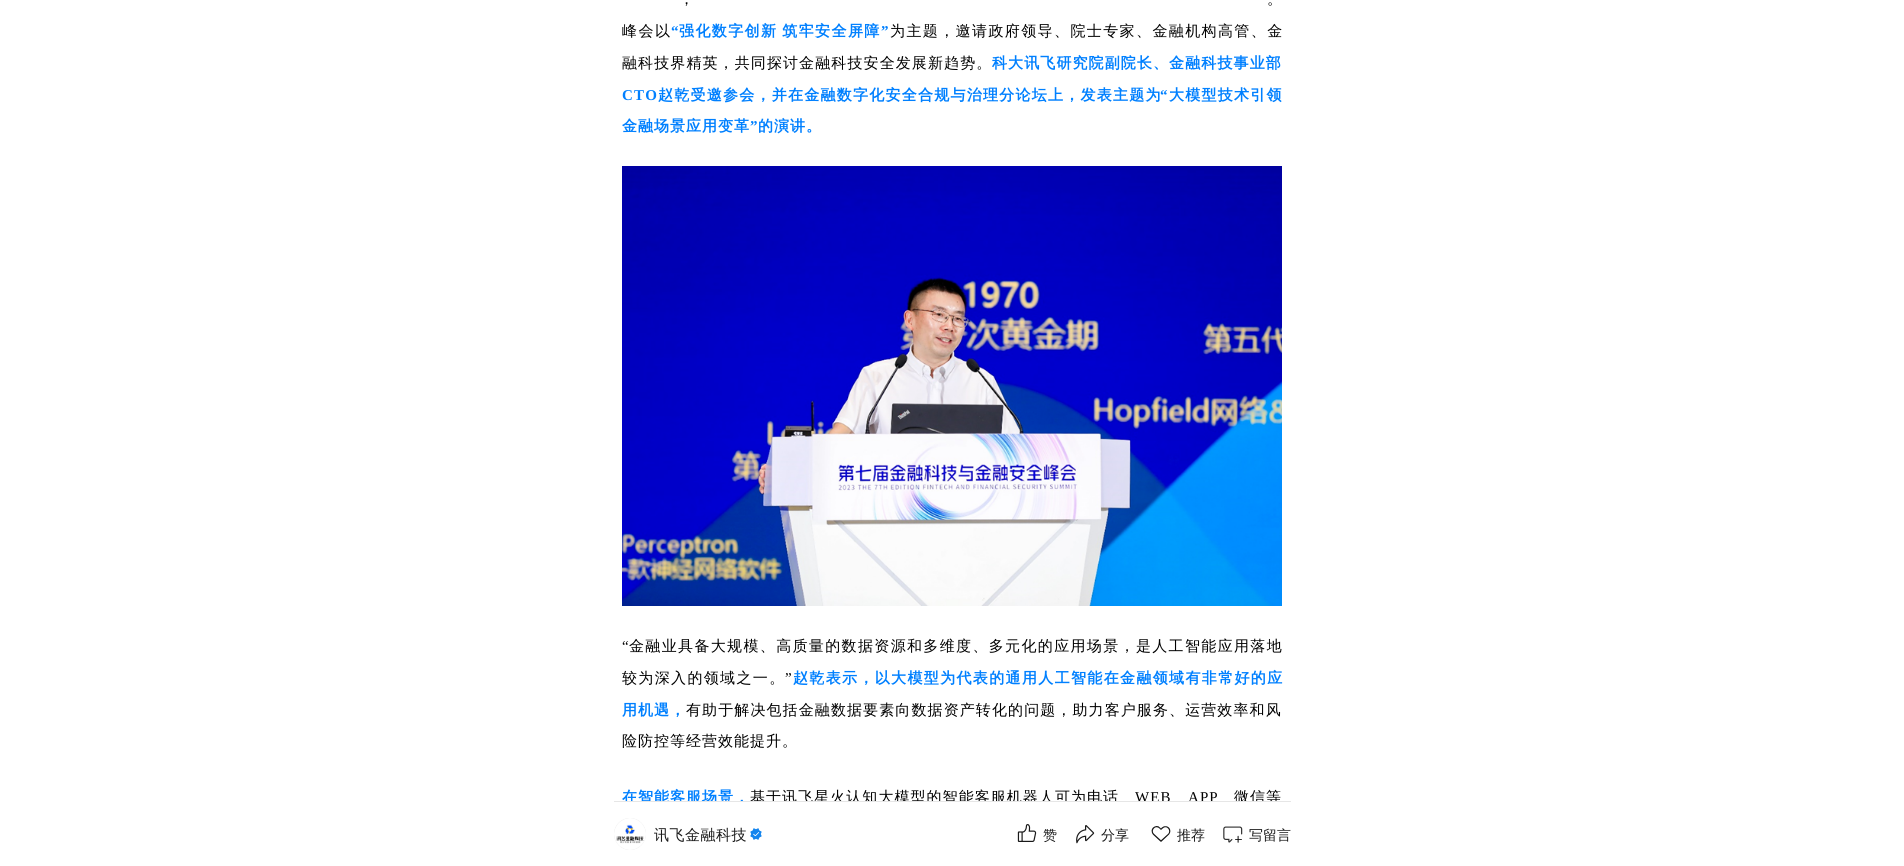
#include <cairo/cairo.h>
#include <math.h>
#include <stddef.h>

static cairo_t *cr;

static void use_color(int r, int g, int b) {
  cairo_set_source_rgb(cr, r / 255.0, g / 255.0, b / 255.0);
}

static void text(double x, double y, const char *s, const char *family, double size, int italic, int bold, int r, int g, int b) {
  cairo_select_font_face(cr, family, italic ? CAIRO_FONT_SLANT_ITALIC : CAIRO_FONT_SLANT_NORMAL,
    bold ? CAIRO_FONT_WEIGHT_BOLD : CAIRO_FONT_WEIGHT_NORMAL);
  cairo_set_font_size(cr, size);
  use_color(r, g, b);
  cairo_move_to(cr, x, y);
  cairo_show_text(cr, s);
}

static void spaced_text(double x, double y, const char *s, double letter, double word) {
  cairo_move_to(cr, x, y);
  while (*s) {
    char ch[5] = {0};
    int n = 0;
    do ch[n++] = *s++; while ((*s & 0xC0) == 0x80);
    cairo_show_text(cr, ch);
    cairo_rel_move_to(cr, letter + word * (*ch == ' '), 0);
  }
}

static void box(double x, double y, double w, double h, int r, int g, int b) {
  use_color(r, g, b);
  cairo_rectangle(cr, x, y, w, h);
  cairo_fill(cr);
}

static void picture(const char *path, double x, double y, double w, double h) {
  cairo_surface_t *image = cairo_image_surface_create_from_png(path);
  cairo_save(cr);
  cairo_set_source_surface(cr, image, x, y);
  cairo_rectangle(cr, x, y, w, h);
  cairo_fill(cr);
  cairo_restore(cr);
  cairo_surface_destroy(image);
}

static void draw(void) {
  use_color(255, 255, 255);
  cairo_paint(cr);
  picture("img_01.png", 622, 166, 660, 440);
  use_color(235, 235, 235);
  cairo_arc(cr, 630, 834, 16, 0, 2 * M_PI);
  cairo_fill(cr);
  picture("img_02.png", 614, 818, 32, 32);
  picture("img_03.png", 750, 828, 12, 12);
  picture("img_04.png", 1017, 824, 20, 18);
  picture("img_05.png", 1076, 825, 19, 19);
  picture("img_06.png", 1151, 826, 20, 16);
  picture("img_07.png", 1223, 826, 20, 17);
  cairo_select_font_face(cr, "WenQuanYi Zen Hei Medium", CAIRO_FONT_SLANT_NORMAL, CAIRO_FONT_WEIGHT_NORMAL);
  cairo_set_font_size(cr, 15);
  use_color(0, 0, 0);
  spaced_text(679, 4, "，", 1, 0);
  spaced_text(1267, 4, "。", 1, 0);
  spaced_text(622, 36, "峰会以", 1.5, 0);
  cairo_select_font_face(cr, "Liberation Serif", CAIRO_FONT_SLANT_NORMAL, CAIRO_FONT_WEIGHT_BOLD);
  use_color(0, 128, 255);
  spaced_text(671, 36, "“", 1.4, 0);
  cairo_select_font_face(cr, "WenQuanYi Zen Hei", CAIRO_FONT_SLANT_NORMAL, CAIRO_FONT_WEIGHT_BOLD);
  spaced_text(679, 36, "强化数字创新 筑牢安全屏障", 1.4, -1);
  cairo_select_font_face(cr, "Liberation Serif", CAIRO_FONT_SLANT_NORMAL, CAIRO_FONT_WEIGHT_BOLD);
  spaced_text(881, 36, "”", 1.4, 0);
  cairo_select_font_face(cr, "WenQuanYi Zen Hei Medium", CAIRO_FONT_SLANT_NORMAL, CAIRO_FONT_WEIGHT_NORMAL);
  use_color(0, 0, 0);
  spaced_text(890, 36, "为主题，邀请政府领导、院士专家、金融机构高管、金", 1.4, 0);
  spaced_text(622, 68, "融科技界精英，共同探讨金融科技安全发展新趋势。", 1.1, 0);
  cairo_select_font_face(cr, "WenQuanYi Zen Hei", CAIRO_FONT_SLANT_NORMAL, CAIRO_FONT_WEIGHT_BOLD);
  use_color(0, 128, 255);
  spaced_text(992, 68, "科大讯飞研究院副院长、金融科技事业部", 1.1, 0);
  cairo_select_font_face(cr, "Liberation Serif", CAIRO_FONT_SLANT_NORMAL, CAIRO_FONT_WEIGHT_BOLD);
  spaced_text(622, 100, "CTO", 1.25, 0);
  cairo_select_font_face(cr, "WenQuanYi Zen Hei", CAIRO_FONT_SLANT_NORMAL, CAIRO_FONT_WEIGHT_BOLD);
  spaced_text(658, 100, "赵乾受邀参会，并在金融数字化安全合规与治理分论坛上，发表主题为", 1.25, 0);
  cairo_select_font_face(cr, "Liberation Serif", CAIRO_FONT_SLANT_NORMAL, CAIRO_FONT_WEIGHT_BOLD);
  spaced_text(1160, 100, "“", 1.25, 0);
  cairo_select_font_face(cr, "WenQuanYi Zen Hei", CAIRO_FONT_SLANT_NORMAL, CAIRO_FONT_WEIGHT_BOLD);
  spaced_text(1169, 100, "大模型技术引领", 1.25, 0);
  spaced_text(622, 131, "金融场景应用变革", 1, 0);
  cairo_select_font_face(cr, "Liberation Serif", CAIRO_FONT_SLANT_NORMAL, CAIRO_FONT_WEIGHT_BOLD);
  spaced_text(750, 131, "”", 1, 0);
  cairo_select_font_face(cr, "WenQuanYi Zen Hei", CAIRO_FONT_SLANT_NORMAL, CAIRO_FONT_WEIGHT_BOLD);
  spaced_text(758, 131, "的演讲。", 1, 0);
  cairo_select_font_face(cr, "Liberation Serif", CAIRO_FONT_SLANT_NORMAL, CAIRO_FONT_WEIGHT_NORMAL);
  use_color(0, 0, 0);
  spaced_text(622, 651, "“", 1.35, 0);
  cairo_select_font_face(cr, "WenQuanYi Zen Hei Medium", CAIRO_FONT_SLANT_NORMAL, CAIRO_FONT_WEIGHT_NORMAL);
  spaced_text(629, 651, "金融业具备大规模、高质量的数据资源和多维度、多元化的应用场景，是人工智能应用落地", 1.35, 0);
  spaced_text(622, 683, "较为深入的领域之一。", 1.35, 0);
  cairo_select_font_face(cr, "Liberation Serif", CAIRO_FONT_SLANT_NORMAL, CAIRO_FONT_WEIGHT_NORMAL);
  spaced_text(785, 683, "”", 1.35, 0);
  cairo_select_font_face(cr, "WenQuanYi Zen Hei", CAIRO_FONT_SLANT_NORMAL, CAIRO_FONT_WEIGHT_BOLD);
  use_color(0, 128, 255);
  spaced_text(793, 683, "赵乾表示，以大模型为代表的通用人工智能在金融领域有非常好的应", 1.35, 0);
  spaced_text(622, 715, "用机遇，", 1, 0);
  cairo_select_font_face(cr, "WenQuanYi Zen Hei Medium", CAIRO_FONT_SLANT_NORMAL, CAIRO_FONT_WEIGHT_NORMAL);
  use_color(0, 0, 0);
  spaced_text(686, 715, "有助于解决包括金融数据要素向数据资产转化的问题，助力客户服务、运营效率和风", 1.1, 0);
  spaced_text(622, 746, "险防控等经营效能提升。", 1, 0);
  cairo_select_font_face(cr, "WenQuanYi Zen Hei", CAIRO_FONT_SLANT_NORMAL, CAIRO_FONT_WEIGHT_BOLD);
  use_color(0, 128, 255);
  spaced_text(622, 802, "在智能客服场景，", 1, 0);
  cairo_select_font_face(cr, "WenQuanYi Zen Hei Medium", CAIRO_FONT_SLANT_NORMAL, CAIRO_FONT_WEIGHT_NORMAL);
  use_color(0, 0, 0);
  spaced_text(750, 802, "基于讯飞星火认知大模型的智能客服机器人可为电话", 1.05, 0);
  cairo_select_font_face(cr, "Liberation Serif", CAIRO_FONT_SLANT_NORMAL, CAIRO_FONT_WEIGHT_NORMAL);
  spaced_text(1135, 802, "WEB", 1.05, 0);
  spaced_text(1188, 802, "APP", 1.05, 0);
  cairo_select_font_face(cr, "WenQuanYi Zen Hei Medium", CAIRO_FONT_SLANT_NORMAL, CAIRO_FONT_WEIGHT_NORMAL);
  spaced_text(1234, 802, "微信等", 1.05, 0);
  box(625, 801, 653, 4, 255, 255, 255);
  box(614, 801, 677, 1, 230, 230, 230);
  use_color(26, 26, 26);
  spaced_text(654, 840, "讯飞金融科技", 0.5, 0);
  text(1043, 840, "赞", "WenQuanYi Zen Hei Medium", 14, 0, 0, 26, 26, 26);
  text(1101, 840, "分享", "WenQuanYi Zen Hei Medium", 14, 0, 0, 26, 26, 26);
  text(1177, 840, "推荐", "WenQuanYi Zen Hei Medium", 14, 0, 0, 26, 26, 26);
  text(1249, 840, "写留言", "WenQuanYi Zen Hei Medium", 14, 0, 0, 26, 26, 26);
}

int main(void) {
  cairo_surface_t *surface = cairo_image_surface_create(CAIRO_FORMAT_RGB24, 1904, 866);
  cr = cairo_create(surface);
  cairo_font_options_t *options = cairo_font_options_create();
  cairo_font_options_set_hint_metrics(options, CAIRO_HINT_METRICS_OFF);
  cairo_font_options_set_hint_style(options, CAIRO_HINT_STYLE_NONE);
  cairo_set_font_options(cr, options);
  cairo_set_miter_limit(cr, 4);
  draw();
  cairo_surface_write_to_png(surface, "out.png");
  cairo_font_options_destroy(options);
  cairo_destroy(cr);
  cairo_surface_destroy(surface);
  return 0;
}
